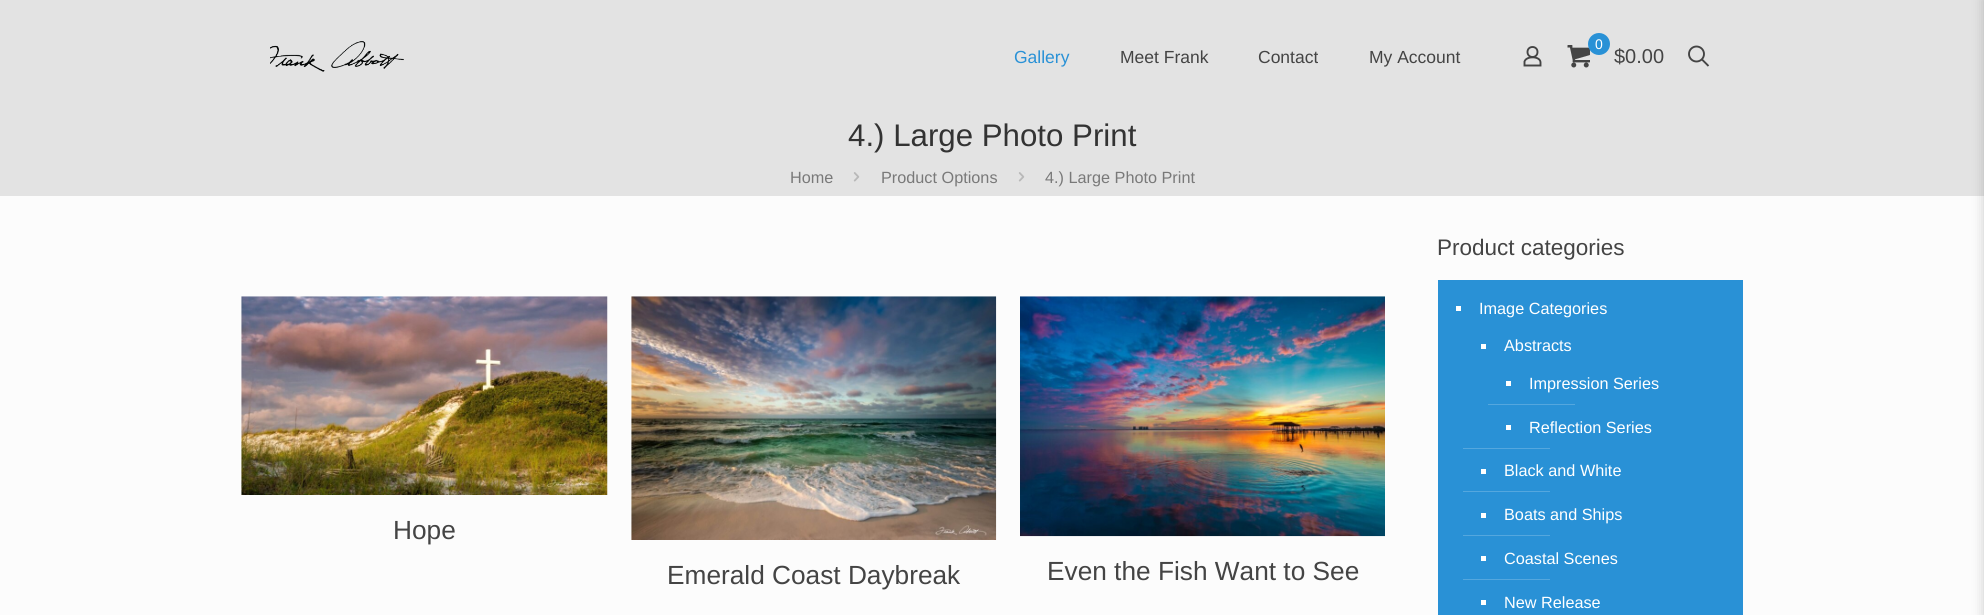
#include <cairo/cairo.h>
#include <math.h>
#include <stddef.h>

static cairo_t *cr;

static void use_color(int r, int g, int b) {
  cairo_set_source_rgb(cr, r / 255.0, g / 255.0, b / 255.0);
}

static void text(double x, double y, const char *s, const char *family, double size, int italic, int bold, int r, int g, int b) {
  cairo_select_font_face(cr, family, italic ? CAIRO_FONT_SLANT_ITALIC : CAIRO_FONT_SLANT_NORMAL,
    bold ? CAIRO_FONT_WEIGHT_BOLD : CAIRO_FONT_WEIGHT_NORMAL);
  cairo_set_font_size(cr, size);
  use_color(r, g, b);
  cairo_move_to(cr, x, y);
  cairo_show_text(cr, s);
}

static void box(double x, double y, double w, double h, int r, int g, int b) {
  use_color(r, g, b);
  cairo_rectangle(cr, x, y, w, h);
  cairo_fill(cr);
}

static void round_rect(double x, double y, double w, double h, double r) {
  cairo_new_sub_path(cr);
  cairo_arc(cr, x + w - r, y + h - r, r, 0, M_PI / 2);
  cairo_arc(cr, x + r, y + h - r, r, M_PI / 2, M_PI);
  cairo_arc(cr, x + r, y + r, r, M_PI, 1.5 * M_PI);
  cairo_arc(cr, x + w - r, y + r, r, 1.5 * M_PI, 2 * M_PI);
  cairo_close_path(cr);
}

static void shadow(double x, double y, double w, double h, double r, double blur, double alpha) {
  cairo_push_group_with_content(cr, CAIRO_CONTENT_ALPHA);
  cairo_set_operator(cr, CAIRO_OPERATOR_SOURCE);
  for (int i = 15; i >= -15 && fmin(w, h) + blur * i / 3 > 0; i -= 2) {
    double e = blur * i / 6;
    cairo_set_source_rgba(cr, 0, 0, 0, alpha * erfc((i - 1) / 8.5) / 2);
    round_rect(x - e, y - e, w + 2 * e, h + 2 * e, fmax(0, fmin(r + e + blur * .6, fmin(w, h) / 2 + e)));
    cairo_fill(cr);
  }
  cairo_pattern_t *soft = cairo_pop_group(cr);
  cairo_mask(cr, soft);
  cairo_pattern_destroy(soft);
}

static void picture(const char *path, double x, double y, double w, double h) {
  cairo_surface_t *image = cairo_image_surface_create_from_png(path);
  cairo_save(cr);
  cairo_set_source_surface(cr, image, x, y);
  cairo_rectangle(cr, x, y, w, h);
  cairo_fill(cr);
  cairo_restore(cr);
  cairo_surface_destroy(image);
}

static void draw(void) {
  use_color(252, 252, 252);
  cairo_paint(cr);
  box(0, 0, 1984, 196, 227, 227, 227);
  picture("img_01.png", 270, 41, 134, 31);
  cairo_arc(cr, 1532.5, 52, 5, 0, 2 * M_PI);
  use_color(68, 68, 68);
  cairo_set_line_width(cr, 1.9);
  cairo_stroke(cr);
  cairo_new_path(cr);
  cairo_move_to(cr, 1540.5, 62.5);
  cairo_line_to(cr, 1540.5, 65.5);
  cairo_line_to(cr, 1524.5, 65.5);
  cairo_line_to(cr, 1524.5, 61.5);
  cairo_curve_to(cr, 1526.5, 55.5, 1540.5, 56, 1540.5, 62.5);
  cairo_close_path(cr);
  cairo_stroke(cr);
  picture("img_02.png", 1567, 45, 23, 23);
  use_color(41, 145, 214);
  cairo_arc(cr, 1599, 44, 11, 0, 2 * M_PI);
  cairo_fill(cr);
  cairo_arc(cr, 1696.5, 54, 7.5, 0, 2 * M_PI);
  use_color(68, 68, 68);
  cairo_stroke(cr);
  cairo_new_path(cr);
  cairo_move_to(cr, 1702, 59.5);
  cairo_line_to(cr, 1708.5, 66);
  cairo_stroke(cr);
  picture("img_03.png", 853, 172, 7, 10);
  picture("img_03.png", 1018, 172, 7, 10);
  picture("img_04.png", 241, 296, 367, 199);
  picture("img_05.png", 631, 296, 366, 244);
  picture("img_06.png", 1020, 296, 365, 241);
  box(1438, 280, 305, 335, 41, 145, 214);
  box(1456, 306, 5, 5, 255, 255, 255);
  box(1481, 344, 5, 5, 255, 255, 255);
  box(1506, 381, 5, 5, 255, 255, 255);
  box(1488, 404, 87, 1, 84, 167, 222);
  box(1506, 425, 5, 5, 255, 255, 255);
  box(1463, 448, 87, 1, 84, 167, 222);
  box(1481, 469, 5, 5, 255, 255, 255);
  box(1463, 491, 87, 1, 84, 167, 222);
  box(1481, 513, 5, 5, 255, 255, 255);
  box(1463, 535, 87, 1, 84, 167, 222);
  box(1481, 556, 5, 5, 255, 255, 255);
  box(1463, 579, 87, 1, 84, 167, 222);
  box(1481, 600, 5, 5, 255, 255, 255);
  use_color(0, 0, 0);
  shadow(1984, -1, 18, 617, 0, 6, 0.2);
  text(1014, 63, "Gallery", "Liberation Sans", 17.5, 0, 0, 41, 145, 214);
  text(1120, 63, "Meet Frank", "Liberation Sans", 17.5, 0, 0, 68, 68, 68);
  text(1258, 63, "Contact", "Liberation Sans", 17.5, 0, 0, 68, 68, 68);
  text(1369, 63, "My Account", "Liberation Sans", 17.5, 0, 0, 68, 68, 68);
  text(1595, 49, "0", "Liberation Sans", 14, 0, 0, 255, 255, 255);
  text(1614, 63, "$0.00", "Liberation Sans", 20, 0, 0, 68, 68, 68);
  text(848, 146, "4.) Large Photo Print", "Liberation Sans", 31.25, 0, 0, 51, 51, 51);
  text(790, 183, "Home", "Liberation Sans", 16.25, 0, 0, 121, 121, 121);
  text(881, 183, "Product Options", "Liberation Sans", 16.25, 0, 0, 121, 121, 121);
  text(1045, 183, "4.) Large Photo Print", "Liberation Sans", 16.25, 0, 0, 121, 121, 121);
  text(393, 539, "Hope", "Liberation Sans", 26.25, 0, 0, 68, 68, 68);
  text(667, 584, "Emerald Coast Daybreak", "Liberation Sans", 26.25, 0, 0, 68, 68, 68);
  text(1047, 580, "Even the Fish Want to See", "Liberation Sans", 26.25, 0, 0, 68, 68, 68);
  text(1437, 255, "Product categories", "Liberation Sans", 22.5, 0, 0, 68, 68, 68);
  text(1479, 314, "Image Categories", "Liberation Sans", 16.25, 0, 0, 255, 255, 255);
  text(1504, 351, "Abstracts", "Liberation Sans", 16.25, 0, 0, 255, 255, 255);
  text(1529, 389, "Impression Series", "Liberation Sans", 16.25, 0, 0, 255, 255, 255);
  text(1529, 433, "Reflection Series", "Liberation Sans", 16.25, 0, 0, 255, 255, 255);
  text(1504, 476, "Black and White", "Liberation Sans", 16.25, 0, 0, 255, 255, 255);
  text(1504, 520, "Boats and Ships", "Liberation Sans", 16.25, 0, 0, 255, 255, 255);
  text(1504, 564, "Coastal Scenes", "Liberation Sans", 16.25, 0, 0, 255, 255, 255);
  text(1504, 608, "New Release", "Liberation Sans", 16.25, 0, 0, 255, 255, 255);
}

int main(void) {
  cairo_surface_t *surface = cairo_image_surface_create(CAIRO_FORMAT_RGB24, 1984, 615);
  cr = cairo_create(surface);
  cairo_font_options_t *options = cairo_font_options_create();
  cairo_font_options_set_hint_metrics(options, CAIRO_HINT_METRICS_OFF);
  cairo_font_options_set_hint_style(options, CAIRO_HINT_STYLE_NONE);
  cairo_set_font_options(cr, options);
  cairo_set_miter_limit(cr, 4);
  draw();
  cairo_surface_write_to_png(surface, "out.png");
  cairo_font_options_destroy(options);
  cairo_destroy(cr);
  cairo_surface_destroy(surface);
  return 0;
}
